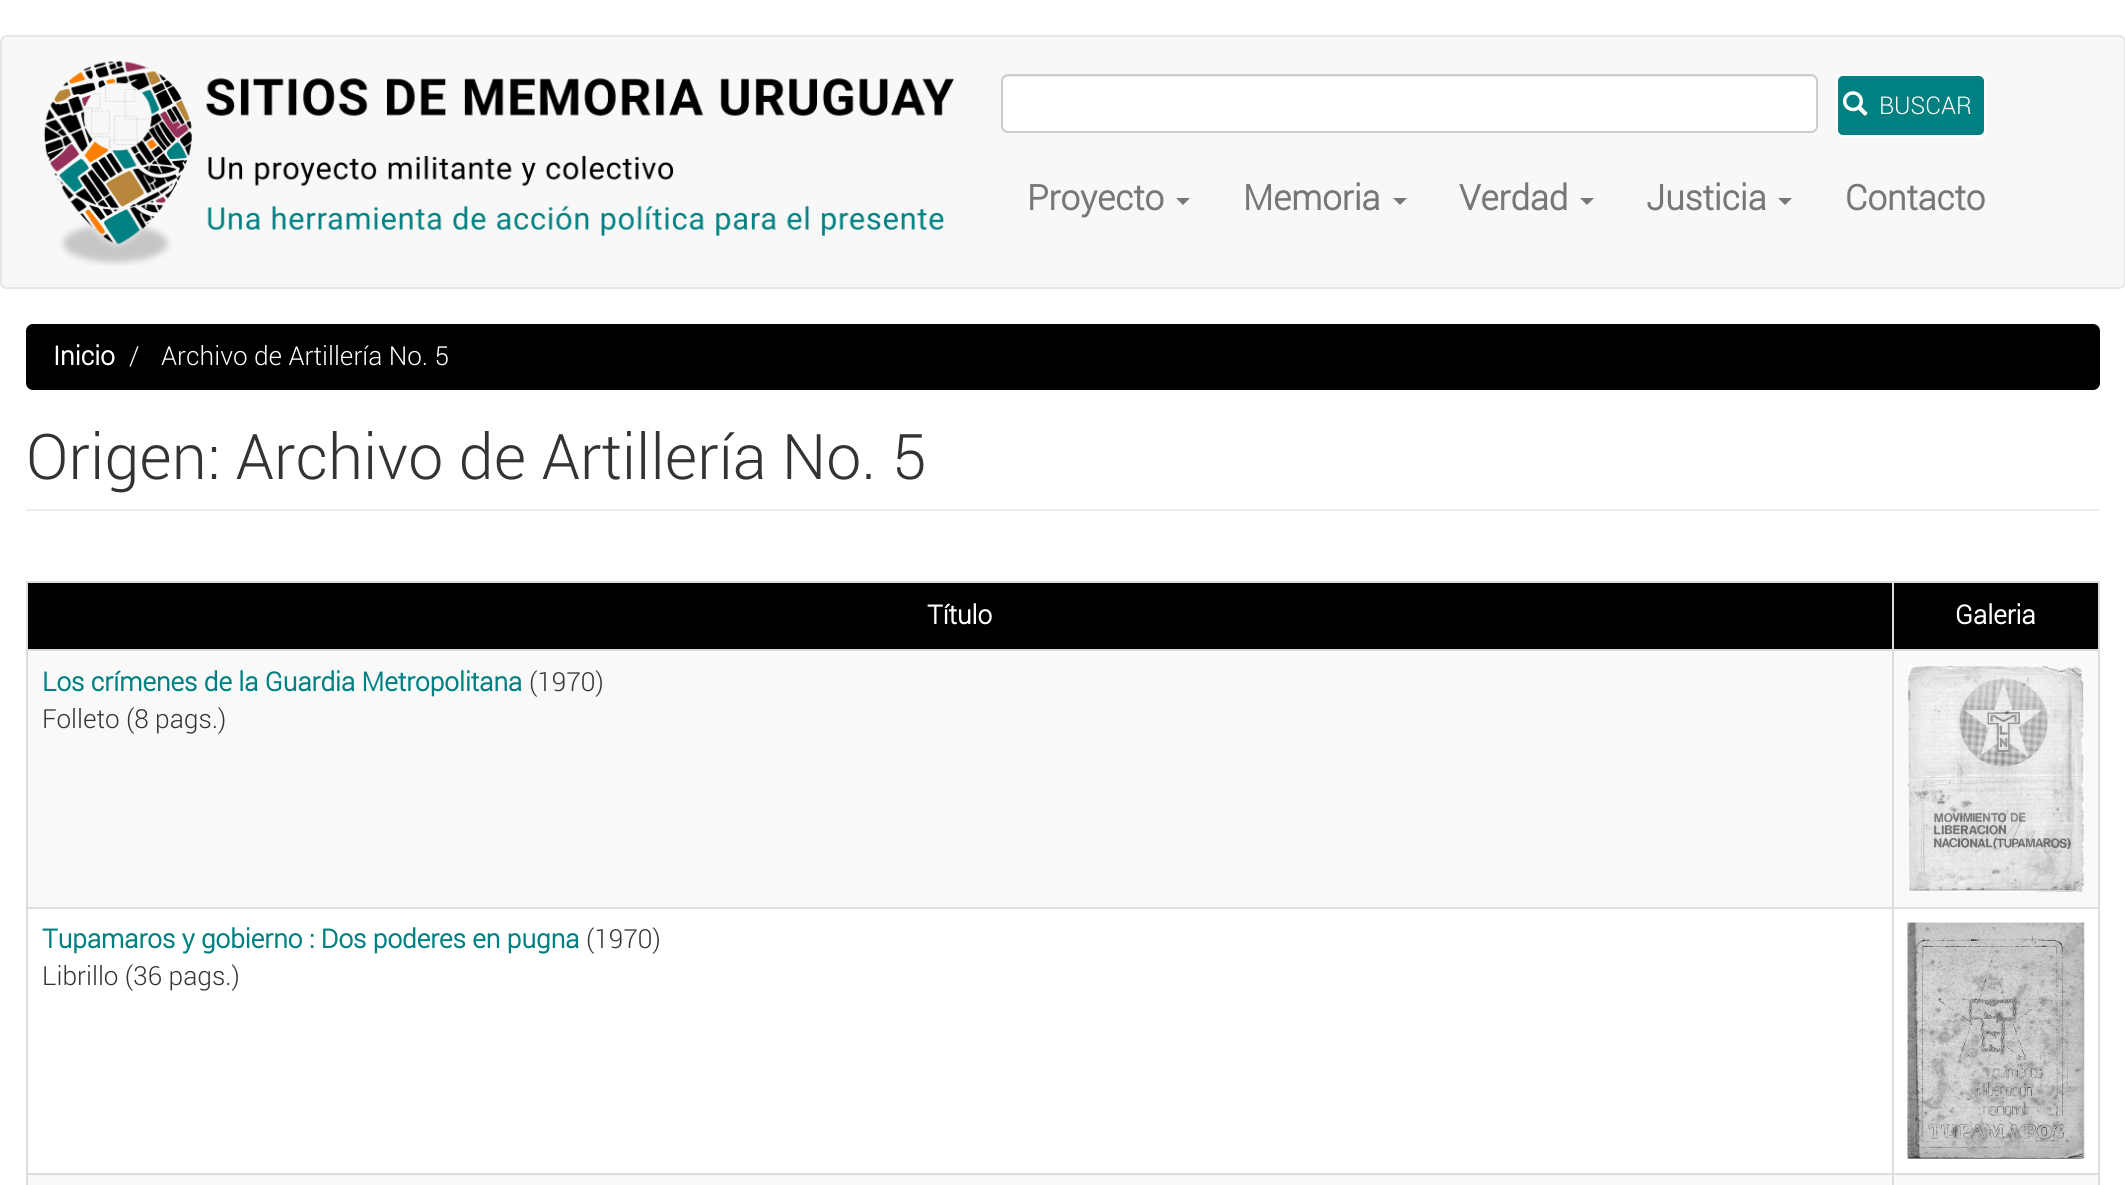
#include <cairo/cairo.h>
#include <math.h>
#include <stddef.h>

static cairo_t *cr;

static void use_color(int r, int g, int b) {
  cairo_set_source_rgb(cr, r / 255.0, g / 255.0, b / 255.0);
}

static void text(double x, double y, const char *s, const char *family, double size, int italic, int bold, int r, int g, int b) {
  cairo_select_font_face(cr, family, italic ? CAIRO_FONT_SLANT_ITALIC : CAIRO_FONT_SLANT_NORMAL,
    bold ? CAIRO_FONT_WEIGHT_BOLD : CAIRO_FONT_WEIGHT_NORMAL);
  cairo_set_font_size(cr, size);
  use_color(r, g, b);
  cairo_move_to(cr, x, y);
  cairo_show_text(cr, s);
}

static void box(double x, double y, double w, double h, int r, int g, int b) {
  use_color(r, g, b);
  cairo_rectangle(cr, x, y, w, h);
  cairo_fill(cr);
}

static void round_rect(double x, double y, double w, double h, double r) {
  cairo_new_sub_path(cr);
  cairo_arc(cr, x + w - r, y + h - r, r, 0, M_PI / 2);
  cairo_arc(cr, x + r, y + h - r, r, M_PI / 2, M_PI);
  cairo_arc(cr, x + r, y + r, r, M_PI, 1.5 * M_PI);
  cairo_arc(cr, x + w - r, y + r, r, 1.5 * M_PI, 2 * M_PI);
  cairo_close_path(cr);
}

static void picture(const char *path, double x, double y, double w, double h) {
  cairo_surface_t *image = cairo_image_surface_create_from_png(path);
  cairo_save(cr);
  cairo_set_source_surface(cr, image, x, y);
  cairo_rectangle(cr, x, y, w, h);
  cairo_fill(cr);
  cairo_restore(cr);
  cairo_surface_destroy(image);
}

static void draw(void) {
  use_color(255, 255, 255);
  cairo_paint(cr);
  use_color(248, 248, 248);
  round_rect(1, 36, 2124, 252, 6);
  cairo_fill_preserve(cr);
  use_color(231, 231, 231);
  cairo_stroke(cr);
  picture("img_01.png", 44, 60, 910, 206);
  use_color(255, 255, 255);
  round_rect(1001, 74, 817, 59, 7);
  cairo_fill(cr);
  use_color(236, 236, 236);
  cairo_new_path(cr);
  cairo_move_to(cr, 1008, 77);
  cairo_line_to(cr, 1811, 77);
  cairo_curve_to(cr, 1814, 77, 1816, 79, 1816, 82);
  cairo_line_to(cr, 1816, 129);
  cairo_curve_to(cr, 1817, 128, 1817, 127, 1817, 126);
  cairo_line_to(cr, 1817, 80);
  cairo_curve_to(cr, 1817, 77, 1815, 75, 1812, 75);
  cairo_line_to(cr, 1008, 75);
  cairo_curve_to(cr, 1005, 75, 1003, 77, 1003, 80);
  cairo_line_to(cr, 1003, 82);
  cairo_curve_to(cr, 1003, 79, 1005, 77, 1008, 77);
  cairo_close_path(cr);
  cairo_fill(cr);
  round_rect(1002, 75, 815, 57, 6);
  use_color(204, 204, 204);
  cairo_stroke(cr);
  use_color(0, 128, 129);
  round_rect(1837, 75, 148, 61, 6);
  cairo_fill_preserve(cr);
  use_color(255, 255, 255);
  cairo_stroke(cr);
  picture("img_02.png", 1842, 91, 26, 25);
  use_color(119, 119, 119);
  cairo_new_path(cr);
  cairo_move_to(cr, 1176, 198);
  cairo_line_to(cr, 1190, 198);
  cairo_line_to(cr, 1183, 205);
  cairo_close_path(cr);
  cairo_fill(cr);
  cairo_new_path(cr);
  cairo_move_to(cr, 1393, 198);
  cairo_line_to(cr, 1407, 198);
  cairo_line_to(cr, 1400, 205);
  cairo_close_path(cr);
  cairo_fill(cr);
  cairo_new_path(cr);
  cairo_move_to(cr, 1580, 198);
  cairo_line_to(cr, 1594, 198);
  cairo_line_to(cr, 1587, 205);
  cairo_close_path(cr);
  cairo_fill(cr);
  cairo_new_path(cr);
  cairo_move_to(cr, 1778, 198);
  cairo_line_to(cr, 1792, 198);
  cairo_line_to(cr, 1785, 205);
  cairo_close_path(cr);
  cairo_fill(cr);
  use_color(0, 0, 0);
  round_rect(26, 324, 2074, 66, 7);
  cairo_fill(cr);
  box(26, 509, 2074, 2, 238, 238, 238);
  box(28, 583, 1864, 66, 0, 0, 0);
  box(1892, 581, 208, 2, 221, 221, 221);
  box(1892, 649, 208, 2, 221, 221, 221);
  box(28, 651, 2070, 256, 249, 249, 249);
  box(1892, 907, 208, 2, 221, 221, 221);
  box(1892, 1173, 208, 2, 221, 221, 221);
  box(28, 1175, 2070, 10, 249, 249, 249);
  box(1892, 1173, 2, 12, 221, 221, 221);
  box(26, 1173, 1868, 2, 221, 221, 221);
  box(1892, 907, 2, 267, 221, 221, 221);
  box(26, 907, 1868, 2, 221, 221, 221);
  box(1892, 649, 2, 259, 221, 221, 221);
  box(26, 649, 1868, 2, 221, 221, 221);
  box(1892, 581, 2, 70, 221, 221, 221);
  box(26, 581, 1868, 2, 221, 221, 221);
  box(26, 1173, 2, 12, 221, 221, 221);
  box(26, 907, 2, 267, 221, 221, 221);
  box(26, 649, 2, 259, 221, 221, 221);
  box(26, 581, 2, 70, 221, 221, 221);
  box(1894, 583, 204, 66, 0, 0, 0);
  box(2098, 1173, 2, 12, 221, 221, 221);
  box(2098, 907, 2, 267, 221, 221, 221);
  box(2098, 649, 2, 259, 221, 221, 221);
  box(2098, 581, 2, 70, 221, 221, 221);
  picture("img_03.png", 1908, 665, 176, 227);
  picture("img_04.png", 1907, 922, 178, 237);
  text(1879, 114, "BUSCAR", "Roboto Light", 24.5, 0, 0, 255, 255, 255);
  text(1027, 210, "Proyecto", "Roboto", 35, 0, 1, 119, 119, 119);
  text(1243, 210, "Memoria", "Roboto", 35, 0, 1, 119, 119, 119);
  text(1459, 210, "Verdad", "Roboto", 35, 0, 1, 119, 119, 119);
  text(1646, 210, "Justicia", "Roboto", 35, 0, 1, 119, 119, 119);
  text(1845, 210, "Contacto", "Roboto", 35, 0, 1, 119, 119, 119);
  text(53, 365, "Inicio", "Roboto", 26.25, 0, 1, 255, 255, 255);
  text(129, 365, "/", "Roboto Light", 26.25, 0, 0, 255, 255, 255);
  text(161, 365, "Archivo de Artillería No. 5", "Roboto Light", 26.25, 0, 0, 255, 255, 255);
  text(26, 479, "Origen: Archivo de Artillería No. 5", "Roboto Light", 63, 0, 0, 51, 51, 51);
  text(927, 624, "Título", "Roboto", 26.25, 0, 1, 255, 255, 255);
  text(1955, 624, "Galeria", "Roboto", 26.25, 0, 1, 255, 255, 255);
  text(42, 691, "Los crímenes de la Guardia Metropolitana", "Roboto", 26.25, 0, 1, 0, 128, 129);
  text(529, 691, "(1970)", "Roboto Light", 26.25, 0, 0, 51, 51, 51);
  text(42, 728, "Folleto (8 pags.)", "Roboto Light", 26.25, 0, 0, 51, 51, 51);
  text(42, 948, "Tupamaros y gobierno : Dos poderes en pugna", "Roboto", 26.25, 0, 1, 0, 128, 129);
  text(586, 948, "(1970)", "Roboto Light", 26.25, 0, 0, 51, 51, 51);
  text(42, 985, "Librillo (36 pags.)", "Roboto Light", 26.25, 0, 0, 51, 51, 51);
}

int main(void) {
  cairo_surface_t *surface = cairo_image_surface_create(CAIRO_FORMAT_RGB24, 2125, 1185);
  cr = cairo_create(surface);
  cairo_font_options_t *options = cairo_font_options_create();
  cairo_font_options_set_hint_metrics(options, CAIRO_HINT_METRICS_OFF);
  cairo_font_options_set_hint_style(options, CAIRO_HINT_STYLE_NONE);
  cairo_set_font_options(cr, options);
  cairo_set_miter_limit(cr, 4);
  draw();
  cairo_surface_write_to_png(surface, "out.png");
  cairo_font_options_destroy(options);
  cairo_destroy(cr);
  cairo_surface_destroy(surface);
  return 0;
}
